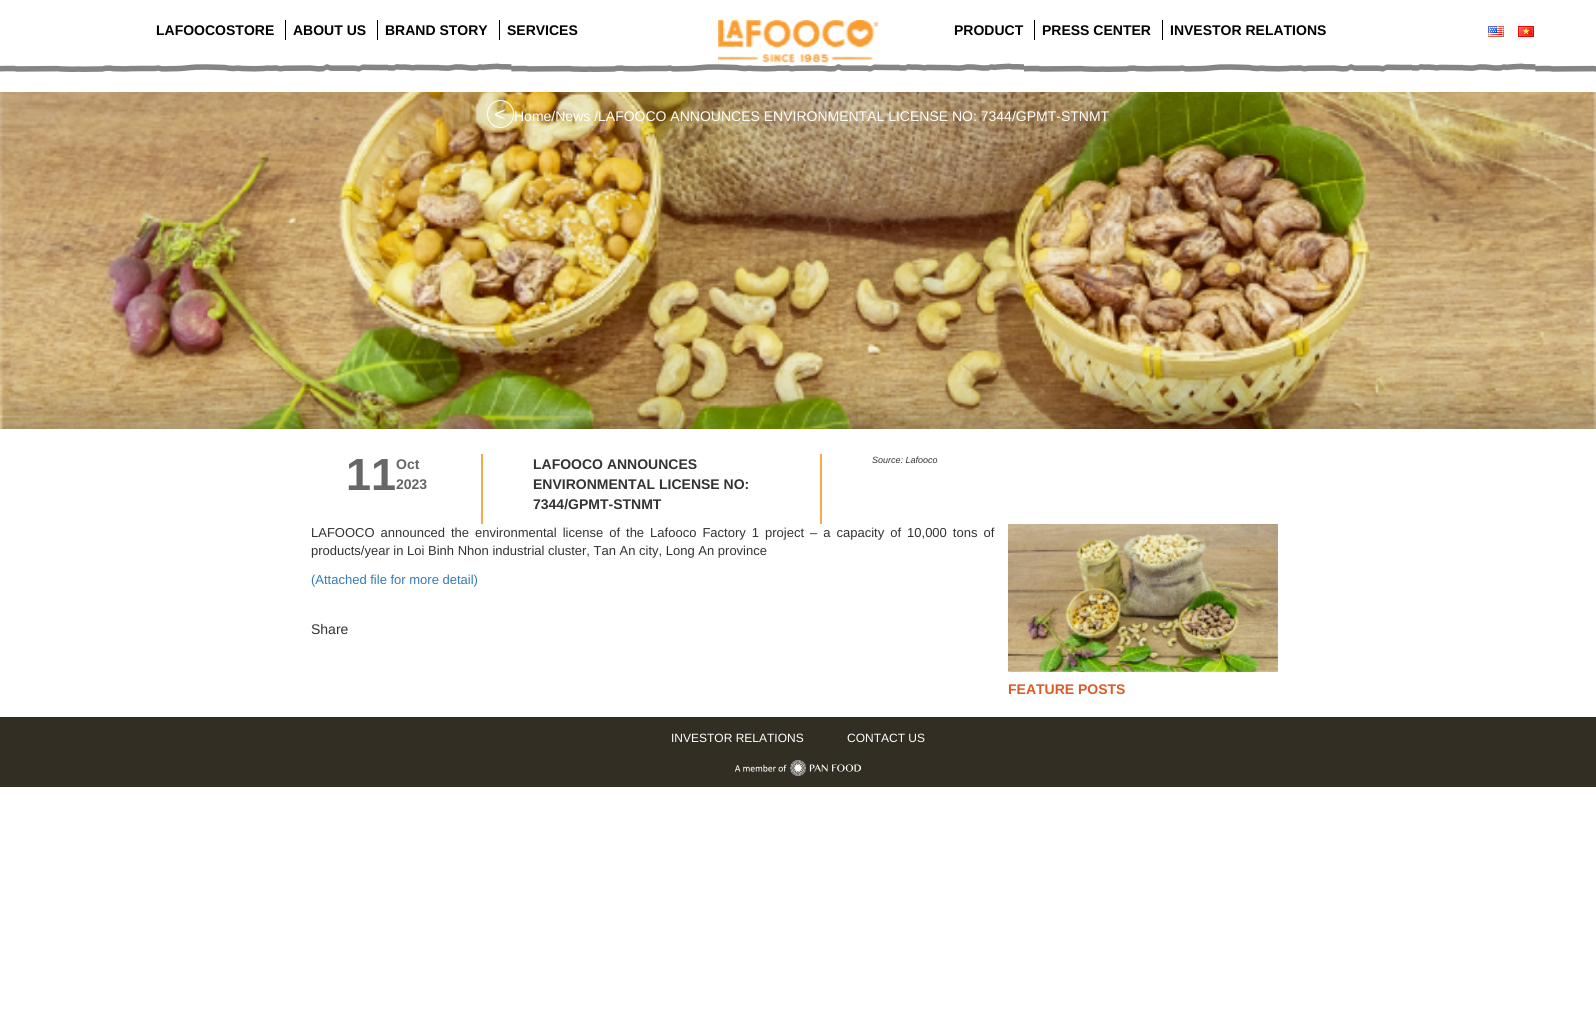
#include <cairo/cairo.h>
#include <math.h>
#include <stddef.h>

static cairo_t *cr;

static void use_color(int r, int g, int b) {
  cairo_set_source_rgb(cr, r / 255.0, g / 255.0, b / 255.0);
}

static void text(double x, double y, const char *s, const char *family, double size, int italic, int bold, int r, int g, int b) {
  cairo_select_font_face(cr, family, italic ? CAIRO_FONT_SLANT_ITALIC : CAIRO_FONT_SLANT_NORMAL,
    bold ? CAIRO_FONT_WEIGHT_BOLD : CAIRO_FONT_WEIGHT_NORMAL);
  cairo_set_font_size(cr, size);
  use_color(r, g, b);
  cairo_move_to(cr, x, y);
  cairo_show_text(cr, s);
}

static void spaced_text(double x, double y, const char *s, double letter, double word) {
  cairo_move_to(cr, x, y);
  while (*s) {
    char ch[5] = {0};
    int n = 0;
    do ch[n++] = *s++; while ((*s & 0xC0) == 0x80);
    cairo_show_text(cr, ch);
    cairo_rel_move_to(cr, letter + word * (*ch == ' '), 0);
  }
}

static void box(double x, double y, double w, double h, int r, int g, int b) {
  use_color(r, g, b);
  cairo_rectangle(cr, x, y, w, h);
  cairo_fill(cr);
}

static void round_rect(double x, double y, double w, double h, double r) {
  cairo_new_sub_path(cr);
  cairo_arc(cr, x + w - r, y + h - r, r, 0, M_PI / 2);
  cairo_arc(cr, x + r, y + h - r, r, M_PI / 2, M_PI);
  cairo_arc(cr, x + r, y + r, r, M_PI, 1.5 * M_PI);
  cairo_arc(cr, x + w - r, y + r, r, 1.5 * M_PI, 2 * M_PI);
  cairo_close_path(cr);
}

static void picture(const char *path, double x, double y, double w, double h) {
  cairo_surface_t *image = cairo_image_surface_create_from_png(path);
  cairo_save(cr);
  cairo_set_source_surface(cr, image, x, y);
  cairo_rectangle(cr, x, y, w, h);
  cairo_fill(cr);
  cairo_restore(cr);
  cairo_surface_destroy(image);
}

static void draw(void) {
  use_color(255, 255, 255);
  cairo_paint(cr);
  picture("img_01.png", 0, 63, 1596, 9);
  box(285, 20, 1, 20, 0, 0, 0);
  box(377, 20, 1, 20, 0, 0, 0);
  box(499, 20, 1, 20, 0, 0, 0);
  picture("img_02.png", 718, 20, 160, 43);
  box(1034, 20, 1, 20, 0, 0, 0);
  box(1162, 20, 1, 20, 0, 0, 0);
  picture("img_03.png", 1488, 26, 16, 11);
  picture("img_04.png", 1518, 26, 16, 11);
  picture("img_05.png", 0, 92, 1596, 337);
  round_rect(487.5, 100.5, 26, 27, 13);
  use_color(255, 255, 255);
  cairo_set_line_width(cr, 1);
  cairo_stroke(cr);
  box(820, 454, 2, 70, 250, 169, 75);
  box(481, 454, 2, 70, 250, 169, 75);
  picture("img_06.png", 1008, 524, 270, 148);
  box(0, 717, 1596, 70, 50, 46, 35);
  picture("img_07.png", 735, 760, 126, 16);
  text(156, 35, "LAFOOCOSTORE", "Liberation Sans", 14, 0, 1, 0, 0, 0);
  text(293, 35, "ABOUT US", "Liberation Sans", 14, 0, 1, 0, 0, 0);
  text(385, 35, "BRAND STORY", "Liberation Sans", 14, 0, 1, 0, 0, 0);
  text(507, 35, "SERVICES", "Liberation Sans", 14, 0, 1, 0, 0, 0);
  text(954, 35, "PRODUCT", "Liberation Sans", 14, 0, 1, 0, 0, 0);
  text(1042, 35, "PRESS CENTER", "Liberation Sans", 14, 0, 1, 0, 0, 0);
  text(1170, 35, "INVESTOR RELATIONS", "Liberation Sans", 14, 0, 1, 0, 0, 0);
  text(494, 121, "<", "Liberation Sans", 20, 0, 0, 255, 255, 255);
  text(514, 121, "Home/News /LAFOOCO ANNOUNCES ENVIRONMENTAL LICENSE NO: 7344/GPMT-STNMT", "Liberation Sans", 14, 0, 0, 255, 255, 255);
  text(346, 490, "11", "Liberation Sans", 45, 0, 1, 102, 102, 102);
  text(396, 469, "Oct", "Liberation Sans", 14, 0, 1, 102, 102, 102);
  text(396, 489, "2023", "Liberation Sans", 14, 0, 1, 102, 102, 102);
  text(533, 469, "LAFOOCO ANNOUNCES", "Liberation Sans", 14, 0, 1, 51, 51, 51);
  text(533, 489, "ENVIRONMENTAL LICENSE NO:", "Liberation Sans", 14, 0, 1, 51, 51, 51);
  text(533, 509, "7344/GPMT-STNMT", "Liberation Sans", 14, 0, 1, 51, 51, 51);
  text(872, 463, "Source: Lafooco", "Liberation Sans", 9, 1, 0, 51, 51, 51);
  cairo_select_font_face(cr, "Liberation Sans", CAIRO_FONT_SLANT_NORMAL, CAIRO_FONT_WEIGHT_NORMAL);
  cairo_set_font_size(cr, 13);
  spaced_text(311, 537, "LAFOOCO announced the environmental license of the Lafooco Factory 1 project – a capacity of 10,000 tons of", 0, 2.4);
  text(311, 555, "products/year in Loi Binh Nhon industrial cluster, Tan An city, Long An province", "Liberation Sans", 13, 0, 0, 51, 51, 51);
  text(311, 584, "(Attached file for more detail)", "Liberation Sans", 13, 0, 0, 51, 122, 183);
  text(311, 634, "Share", "Liberation Sans", 14, 0, 0, 51, 51, 51);
  text(1008, 694, "FEATURE POSTS", "Liberation Sans", 14, 0, 1, 221, 90, 36);
  text(671, 742, "INVESTOR RELATIONS", "Liberation Sans", 12, 0, 0, 255, 255, 255);
  text(847, 742, "CONTACT US", "Liberation Sans", 12, 0, 0, 255, 255, 255);
}

int main(void) {
  cairo_surface_t *surface = cairo_image_surface_create(CAIRO_FORMAT_RGB24, 1596, 1021);
  cr = cairo_create(surface);
  cairo_font_options_t *options = cairo_font_options_create();
  cairo_font_options_set_hint_metrics(options, CAIRO_HINT_METRICS_OFF);
  cairo_font_options_set_hint_style(options, CAIRO_HINT_STYLE_NONE);
  cairo_set_font_options(cr, options);
  cairo_set_miter_limit(cr, 4);
  draw();
  cairo_surface_write_to_png(surface, "out.png");
  cairo_font_options_destroy(options);
  cairo_destroy(cr);
  cairo_surface_destroy(surface);
  return 0;
}
